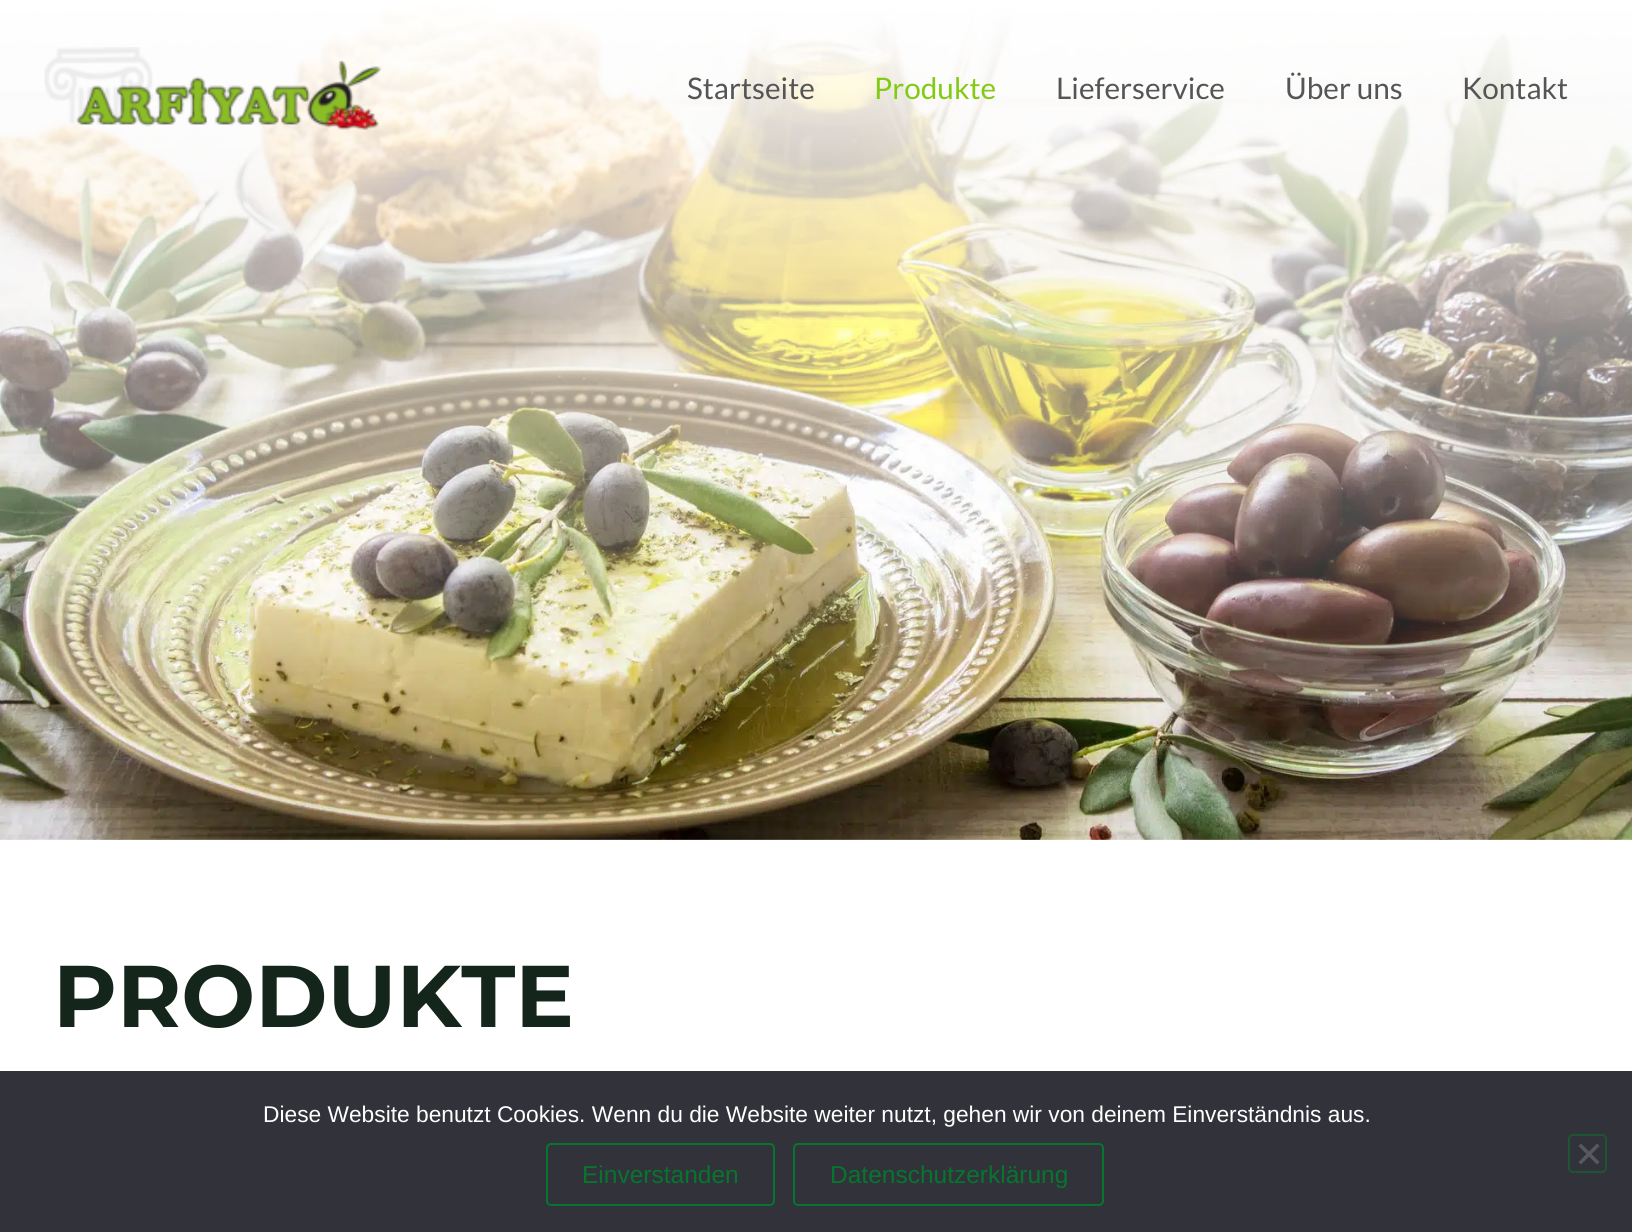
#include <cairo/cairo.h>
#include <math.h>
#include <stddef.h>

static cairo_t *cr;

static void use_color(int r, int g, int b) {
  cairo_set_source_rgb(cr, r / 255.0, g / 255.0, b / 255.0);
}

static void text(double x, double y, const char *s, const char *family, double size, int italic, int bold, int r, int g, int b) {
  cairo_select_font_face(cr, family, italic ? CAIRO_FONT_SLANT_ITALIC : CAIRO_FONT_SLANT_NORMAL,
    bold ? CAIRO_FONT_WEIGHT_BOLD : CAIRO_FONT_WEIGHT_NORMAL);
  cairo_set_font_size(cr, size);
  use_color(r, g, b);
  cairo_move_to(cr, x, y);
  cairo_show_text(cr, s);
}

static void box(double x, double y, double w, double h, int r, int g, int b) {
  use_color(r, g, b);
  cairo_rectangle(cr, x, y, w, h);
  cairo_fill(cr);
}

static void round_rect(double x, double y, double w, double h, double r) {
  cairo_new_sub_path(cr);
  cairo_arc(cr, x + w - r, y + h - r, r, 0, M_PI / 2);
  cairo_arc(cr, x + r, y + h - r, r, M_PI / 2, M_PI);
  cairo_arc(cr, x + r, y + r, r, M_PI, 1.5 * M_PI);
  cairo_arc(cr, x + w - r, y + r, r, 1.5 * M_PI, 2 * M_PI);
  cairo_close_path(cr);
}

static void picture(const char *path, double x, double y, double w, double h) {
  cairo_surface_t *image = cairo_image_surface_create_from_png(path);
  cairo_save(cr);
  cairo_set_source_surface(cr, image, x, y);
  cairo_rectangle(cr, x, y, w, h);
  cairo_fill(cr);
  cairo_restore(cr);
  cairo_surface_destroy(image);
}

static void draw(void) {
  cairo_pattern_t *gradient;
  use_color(255, 255, 255);
  cairo_paint(cr);
  picture("img_02.png", 0, 4, 1632, 836);
  gradient = cairo_pattern_create_linear(816, 0, 816, 840);
  cairo_pattern_add_color_stop_rgba(gradient, 0, 1, 1, 1, 1);
  cairo_pattern_add_color_stop_rgba(gradient, 0.86, 1, 1, 1, 0);
  cairo_set_source(cr, gradient);
  cairo_pattern_destroy(gradient);
  cairo_rectangle(cr, 0, 4, 1632, 703);
  cairo_fill(cr);
  picture("img_01.png", 44, 47, 338, 83);
  box(0, 1071, 1632, 161, 50, 50, 58);
  round_rect(1569, 1135, 37, 37, 4);
  use_color(28, 84, 52);
  cairo_stroke(cr);
  use_color(89, 89, 93);
  cairo_new_path(cr);
  cairo_move_to(cr, 1597, 1143.5);
  cairo_line_to(cr, 1599.5, 1146);
  cairo_line_to(cr, 1581, 1164.5);
  cairo_line_to(cr, 1578.5, 1162);
  cairo_close_path(cr);
  cairo_fill(cr);
  cairo_new_path(cr);
  cairo_move_to(cr, 1578.5, 1146);
  cairo_line_to(cr, 1581, 1143.5);
  cairo_line_to(cr, 1599.5, 1162);
  cairo_line_to(cr, 1597, 1164.5);
  cairo_close_path(cr);
  cairo_fill(cr);
  round_rect(547, 1144, 227, 61, 4);
  use_color(6, 117, 46);
  cairo_stroke(cr);
  round_rect(794, 1144, 309, 61, 4);
  cairo_stroke(cr);
  text(687, 99, "Startseite", "Lato", 29.75, 0, 0, 85, 85, 85);
  text(874, 99, "Produkte", "Lato", 29.75, 0, 0, 131, 202, 19);
  text(1056, 99, "Lieferservice", "Lato", 29.75, 0, 0, 85, 85, 85);
  text(1285, 99, "Über uns", "Lato", 29.75, 0, 0, 85, 85, 85);
  text(1462, 99, "Kontakt", "Lato", 29.75, 0, 0, 85, 85, 85);
  text(53, 1027, "PRODUKTE", "Montserrat", 87.5, 0, 1, 20, 38, 28);
  text(263, 1122, "Diese Website benutzt Cookies. Wenn du die Website weiter nutzt, gehen wir von deinem Einverständnis aus.", "Liberation Sans", 22.75, 0, 0, 255, 255, 255);
  text(582, 1183, "Einverstanden", "Liberation Sans", 24.5, 0, 0, 6, 117, 46);
  text(830, 1183, "Datenschutzerklärung", "Liberation Sans", 24.5, 0, 0, 6, 117, 46);
}

int main(void) {
  cairo_surface_t *surface = cairo_image_surface_create(CAIRO_FORMAT_RGB24, 1632, 1232);
  cr = cairo_create(surface);
  cairo_font_options_t *options = cairo_font_options_create();
  cairo_font_options_set_hint_metrics(options, CAIRO_HINT_METRICS_OFF);
  cairo_font_options_set_hint_style(options, CAIRO_HINT_STYLE_NONE);
  cairo_set_font_options(cr, options);
  cairo_set_miter_limit(cr, 4);
  draw();
  cairo_surface_write_to_png(surface, "out.png");
  cairo_font_options_destroy(options);
  cairo_destroy(cr);
  cairo_surface_destroy(surface);
  return 0;
}
